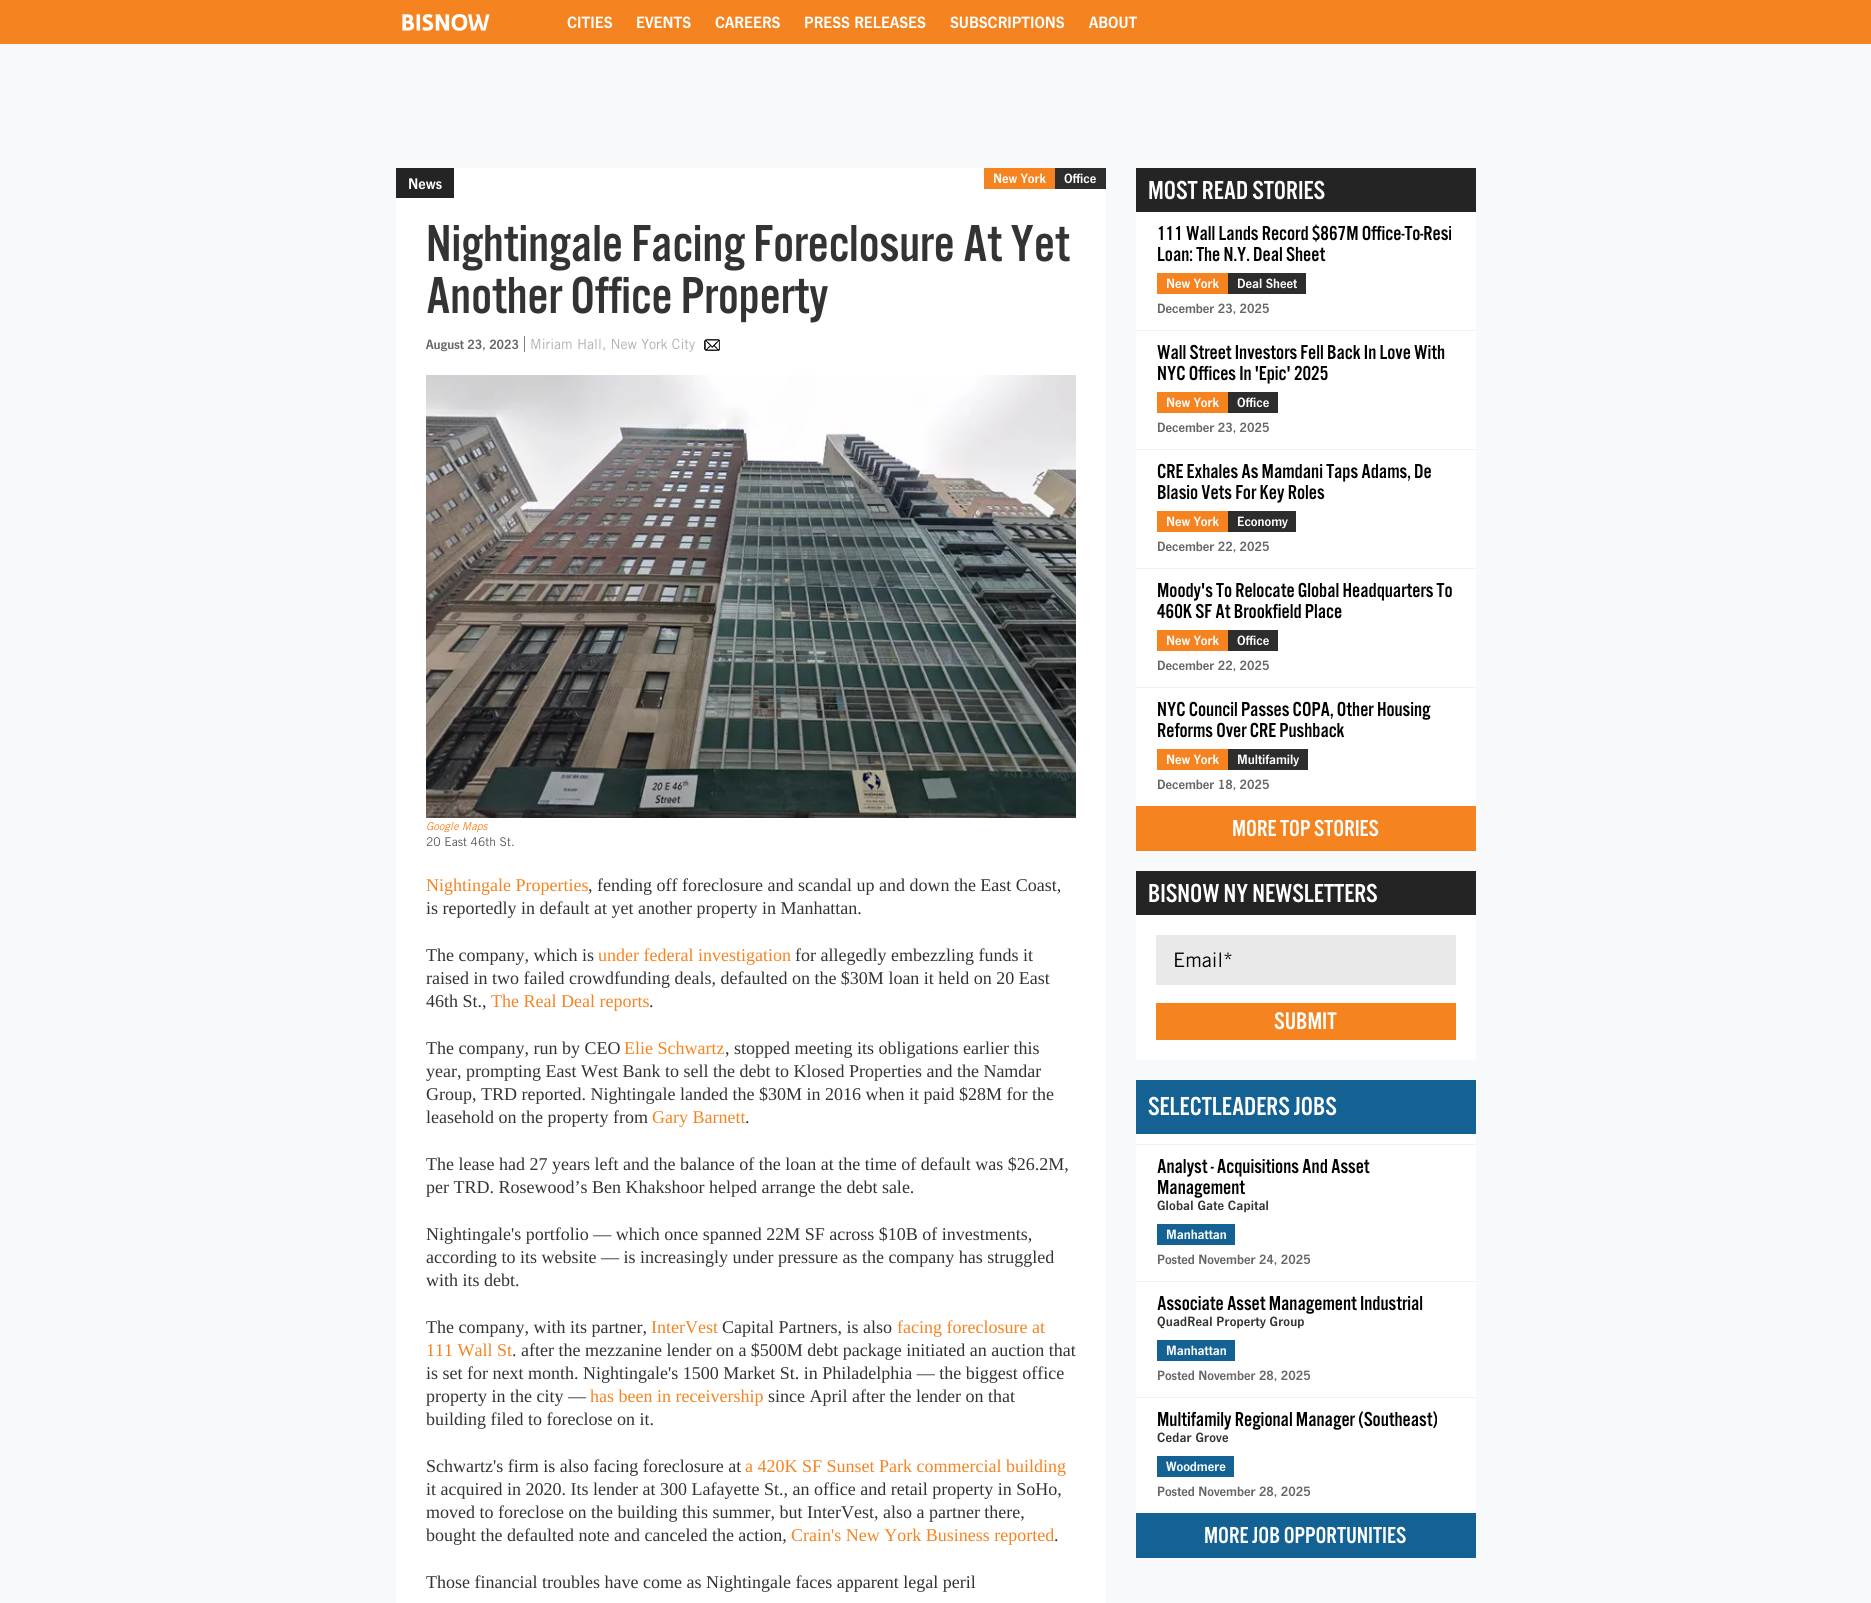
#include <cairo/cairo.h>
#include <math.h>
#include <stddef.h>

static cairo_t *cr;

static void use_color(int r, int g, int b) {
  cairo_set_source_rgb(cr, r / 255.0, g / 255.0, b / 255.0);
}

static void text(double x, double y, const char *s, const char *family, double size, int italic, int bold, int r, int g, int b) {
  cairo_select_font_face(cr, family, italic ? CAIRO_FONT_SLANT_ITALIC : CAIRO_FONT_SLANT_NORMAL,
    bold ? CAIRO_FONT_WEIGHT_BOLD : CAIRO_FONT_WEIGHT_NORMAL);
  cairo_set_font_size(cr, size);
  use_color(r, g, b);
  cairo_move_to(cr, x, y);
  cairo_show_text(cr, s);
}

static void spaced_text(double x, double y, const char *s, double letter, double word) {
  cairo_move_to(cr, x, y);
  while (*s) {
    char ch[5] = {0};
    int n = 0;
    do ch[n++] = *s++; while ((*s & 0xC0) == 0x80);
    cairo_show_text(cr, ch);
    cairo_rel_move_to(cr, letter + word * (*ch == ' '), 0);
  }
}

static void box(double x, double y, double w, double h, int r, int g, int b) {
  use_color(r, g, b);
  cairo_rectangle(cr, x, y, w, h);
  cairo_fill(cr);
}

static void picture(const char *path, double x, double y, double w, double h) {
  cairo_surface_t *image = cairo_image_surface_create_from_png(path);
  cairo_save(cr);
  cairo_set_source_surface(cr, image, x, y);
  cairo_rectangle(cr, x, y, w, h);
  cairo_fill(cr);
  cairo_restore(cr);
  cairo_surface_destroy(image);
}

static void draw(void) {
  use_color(248, 249, 250);
  cairo_paint(cr);
  box(0, 0, 1871, 44, 245, 131, 32);
  picture("img_01.png", 402, 14, 88, 17);
  box(396, 168, 710, 1435, 255, 255, 255);
  box(984, 168, 71, 21, 245, 131, 32);
  box(1055, 168, 51, 21, 45, 45, 45);
  box(524, 336, 1, 16, 128, 128, 128);
  picture("img_02.png", 704, 339, 16, 12);
  picture("img_03.png", 426, 375, 650, 443);
  box(396, 168, 58, 30, 36, 36, 36);
  box(1136, 212, 340, 594, 255, 255, 255);
  box(1136, 168, 340, 44, 36, 36, 36);
  box(1157, 273, 71, 21, 245, 131, 32);
  box(1228, 273, 78, 21, 45, 45, 45);
  box(1136, 330, 340, 1, 240, 243, 243);
  box(1157, 392, 71, 21, 245, 131, 32);
  box(1228, 392, 50, 21, 45, 45, 45);
  box(1136, 449, 340, 1, 240, 243, 243);
  box(1157, 511, 71, 21, 245, 131, 32);
  box(1228, 511, 68, 21, 45, 45, 45);
  box(1136, 568, 340, 1, 240, 243, 243);
  box(1157, 630, 71, 21, 245, 131, 32);
  box(1228, 630, 50, 21, 45, 45, 45);
  box(1136, 687, 340, 1, 240, 243, 243);
  box(1157, 749, 71, 21, 245, 131, 32);
  box(1228, 749, 80, 21, 45, 45, 45);
  box(1136, 806, 340, 45, 245, 131, 32);
  box(1136, 915, 340, 145, 255, 255, 255);
  box(1136, 871, 340, 44, 36, 36, 36);
  box(1156, 935, 300, 50, 233, 233, 233);
  box(1156, 1003, 300, 37, 245, 131, 32);
  box(1136, 1134, 340, 379, 255, 255, 255);
  box(1136, 1080, 340, 54, 20, 97, 148);
  box(1136, 1144, 340, 1, 240, 243, 243);
  box(1157, 1224, 78, 21, 20, 97, 148);
  box(1136, 1281, 340, 1, 240, 243, 243);
  box(1157, 1340, 78, 21, 20, 97, 148);
  box(1136, 1397, 340, 1, 240, 243, 243);
  box(1157, 1456, 77, 21, 20, 97, 148);
  box(1136, 1513, 340, 45, 20, 97, 148);
  text(567, 28, "CITIES", "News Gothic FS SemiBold", 17, 0, 0, 255, 255, 255);
  text(636, 28, "EVENTS", "News Gothic FS SemiBold", 17, 0, 0, 255, 255, 255);
  text(715, 28, "CAREERS", "News Gothic FS SemiBold", 17, 0, 0, 255, 255, 255);
  text(804, 28, "PRESS RELEASES", "News Gothic FS SemiBold", 17, 0, 0, 255, 255, 255);
  text(950, 28, "SUBSCRIPTIONS", "News Gothic FS SemiBold", 17, 0, 0, 255, 255, 255);
  text(1089, 28, "ABOUT", "News Gothic FS SemiBold", 17, 0, 0, 255, 255, 255);
  text(993, 183, "New York", "News Gothic FS SemiBold", 14, 0, 0, 255, 255, 255);
  text(1064, 183, "Office", "News Gothic FS SemiBold", 14, 0, 0, 255, 255, 255);
  text(426, 349, "August 23, 2023", "News Gothic FS SemiBold", 14, 0, 0, 102, 102, 102);
  text(530, 349, "Miriam Hall, New York City", "Trade Gothic", 14, 0, 0, 177, 177, 177);
  text(426, 830, "Google Maps", "Trade Gothic", 11, 1, 0, 245, 131, 32);
  text(426, 846, "20 East 46th St.", "Trade Gothic", 12, 0, 0, 85, 85, 85);
  text(426, 891, "Nightingale Properties", "Liberation Serif", 18, 0, 0, 245, 131, 32);
  text(588, 891, ", fending off foreclosure and scandal up and down the East Coast,", "Liberation Serif", 18, 0, 0, 51, 51, 51);
  text(426, 914, "is reportedly in default at yet another property in Manhattan.", "Liberation Serif", 18, 0, 0, 51, 51, 51);
  text(426, 961, "The company, which is", "Liberation Serif", 18, 0, 0, 51, 51, 51);
  text(598, 961, "under federal investigation", "Liberation Serif", 18, 0, 0, 245, 131, 32);
  text(795, 961, "for allegedly embezzling funds it", "Liberation Serif", 18, 0, 0, 51, 51, 51);
  text(426, 984, "raised in two failed crowdfunding deals, defaulted on the $30M loan it held on 20 East", "Liberation Serif", 18, 0, 0, 51, 51, 51);
  text(426, 1007, "46th St.,", "Liberation Serif", 18, 0, 0, 51, 51, 51);
  text(491, 1007, "The Real Deal reports", "Liberation Serif", 18, 0, 0, 245, 131, 32);
  text(649, 1007, ".", "Liberation Serif", 18, 0, 0, 51, 51, 51);
  text(426, 1054, "The company, run by CEO", "Liberation Serif", 18, 0, 0, 51, 51, 51);
  text(624, 1054, "Elie Schwartz", "Liberation Serif", 18, 0, 0, 245, 131, 32);
  text(725, 1054, ", stopped meeting its obligations earlier this", "Liberation Serif", 18, 0, 0, 51, 51, 51);
  text(426, 1077, "year, prompting East West Bank to sell the debt to Klosed Properties and the Namdar", "Liberation Serif", 18, 0, 0, 51, 51, 51);
  text(426, 1100, "Group, TRD reported. Nightingale landed the $30M in 2016 when it paid $28M for the", "Liberation Serif", 18, 0, 0, 51, 51, 51);
  text(426, 1123, "leasehold on the property from", "Liberation Serif", 18, 0, 0, 51, 51, 51);
  text(652, 1123, "Gary Barnett", "Liberation Serif", 18, 0, 0, 245, 131, 32);
  text(745, 1123, ".", "Liberation Serif", 18, 0, 0, 51, 51, 51);
  text(426, 1170, "The lease had 27 years left and the balance of the loan at the time of default was $26.2M,", "Liberation Serif", 18, 0, 0, 51, 51, 51);
  text(426, 1193, "per TRD. Rosewood’s Ben Khakshoor helped arrange the debt sale.", "Liberation Serif", 18, 0, 0, 51, 51, 51);
  text(426, 1240, "Nightingale's portfolio — which once spanned 22M SF across $10B of investments,", "Liberation Serif", 18, 0, 0, 51, 51, 51);
  text(426, 1263, "according to its website — is increasingly under pressure as the company has struggled", "Liberation Serif", 18, 0, 0, 51, 51, 51);
  text(426, 1286, "with its debt.", "Liberation Serif", 18, 0, 0, 51, 51, 51);
  text(426, 1333, "The company, with its partner,", "Liberation Serif", 18, 0, 0, 51, 51, 51);
  text(651, 1333, "InterVest", "Liberation Serif", 18, 0, 0, 245, 131, 32);
  text(722, 1333, "Capital Partners, is also", "Liberation Serif", 18, 0, 0, 51, 51, 51);
  text(897, 1333, "facing foreclosure at", "Liberation Serif", 18, 0, 0, 245, 131, 32);
  text(426, 1356, "111 Wall St", "Liberation Serif", 18, 0, 0, 245, 131, 32);
  text(512, 1356, ". after the mezzanine lender on a $500M debt package initiated an auction that", "Liberation Serif", 18, 0, 0, 51, 51, 51);
  text(426, 1379, "is set for next month. Nightingale's 1500 Market St. in Philadelphia — the biggest office", "Liberation Serif", 18, 0, 0, 51, 51, 51);
  text(426, 1402, "property in the city —", "Liberation Serif", 18, 0, 0, 51, 51, 51);
  text(590, 1402, "has been in receivership", "Liberation Serif", 18, 0, 0, 245, 131, 32);
  text(768, 1402, "since April after the lender on that", "Liberation Serif", 18, 0, 0, 51, 51, 51);
  text(426, 1425, "building filed to foreclose on it.", "Liberation Serif", 18, 0, 0, 51, 51, 51);
  text(426, 1472, "Schwartz's firm is also facing foreclosure at", "Liberation Serif", 18, 0, 0, 51, 51, 51);
  text(745, 1472, "a 420K SF Sunset Park commercial building", "Liberation Serif", 18, 0, 0, 245, 131, 32);
  text(426, 1495, "it acquired in 2020. Its lender at 300 Lafayette St., an office and retail property in SoHo,", "Liberation Serif", 18, 0, 0, 51, 51, 51);
  text(426, 1518, "moved to foreclose on the building this summer, but InterVest, also a partner there,", "Liberation Serif", 18, 0, 0, 51, 51, 51);
  text(426, 1541, "bought the defaulted note and canceled the action,", "Liberation Serif", 18, 0, 0, 51, 51, 51);
  text(791, 1541, "Crain's New York Business reported", "Liberation Serif", 18, 0, 0, 245, 131, 32);
  text(1054, 1541, ".", "Liberation Serif", 18, 0, 0, 51, 51, 51);
  text(426, 1588, "Those financial troubles have come as Nightingale faces apparent legal peril", "Liberation Serif", 18, 0, 0, 51, 51, 51);
  text(408, 189, "News", "News Gothic FS SemiBold", 16, 0, 0, 255, 255, 255);
  text(426, 261, "Nightingale Facing Foreclosure At Yet", "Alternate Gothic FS", 54, 0, 0, 51, 51, 51);
  text(426, 313, "Another Office Property", "Alternate Gothic FS", 54, 0, 0, 51, 51, 51);
  text(1148, 199, "MOST READ STORIES", "Alternate Gothic FS", 27, 0, 0, 255, 255, 255);
  text(1157, 240, "111 Wall Lands Record $867M Office-To-Resi", "Alternate Gothic FS", 21, 0, 0, 0, 0, 0);
  text(1157, 261, "Loan: The N.Y. Deal Sheet", "Alternate Gothic FS", 21, 0, 0, 0, 0, 0);
  text(1166, 288, "New York", "News Gothic FS SemiBold", 14, 0, 0, 255, 255, 255);
  text(1237, 288, "Deal Sheet", "News Gothic FS SemiBold", 14, 0, 0, 255, 255, 255);
  text(1157, 313, "December 23, 2025", "News Gothic FS SemiBold", 14, 0, 0, 102, 102, 102);
  text(1157, 359, "Wall Street Investors Fell Back In Love With", "Alternate Gothic FS", 21, 0, 0, 0, 0, 0);
  text(1157, 380, "NYC Offices In 'Epic' 2025", "Alternate Gothic FS", 21, 0, 0, 0, 0, 0);
  text(1166, 407, "New York", "News Gothic FS SemiBold", 14, 0, 0, 255, 255, 255);
  text(1237, 407, "Office", "News Gothic FS SemiBold", 14, 0, 0, 255, 255, 255);
  text(1157, 432, "December 23, 2025", "News Gothic FS SemiBold", 14, 0, 0, 102, 102, 102);
  text(1157, 478, "CRE Exhales As Mamdani Taps Adams, De", "Alternate Gothic FS", 21, 0, 0, 0, 0, 0);
  text(1157, 499, "Blasio Vets For Key Roles", "Alternate Gothic FS", 21, 0, 0, 0, 0, 0);
  text(1166, 526, "New York", "News Gothic FS SemiBold", 14, 0, 0, 255, 255, 255);
  text(1237, 526, "Economy", "News Gothic FS SemiBold", 14, 0, 0, 255, 255, 255);
  text(1157, 551, "December 22, 2025", "News Gothic FS SemiBold", 14, 0, 0, 102, 102, 102);
  text(1157, 597, "Moody's To Relocate Global Headquarters To", "Alternate Gothic FS", 21, 0, 0, 0, 0, 0);
  text(1157, 618, "460K SF At Brookfield Place", "Alternate Gothic FS", 21, 0, 0, 0, 0, 0);
  text(1166, 645, "New York", "News Gothic FS SemiBold", 14, 0, 0, 255, 255, 255);
  text(1237, 645, "Office", "News Gothic FS SemiBold", 14, 0, 0, 255, 255, 255);
  text(1157, 670, "December 22, 2025", "News Gothic FS SemiBold", 14, 0, 0, 102, 102, 102);
  text(1157, 716, "NYC Council Passes COPA, Other Housing", "Alternate Gothic FS", 21, 0, 0, 0, 0, 0);
  text(1157, 737, "Reforms Over CRE Pushback", "Alternate Gothic FS", 21, 0, 0, 0, 0, 0);
  text(1166, 764, "New York", "News Gothic FS SemiBold", 14, 0, 0, 255, 255, 255);
  text(1237, 764, "Multifamily", "News Gothic FS SemiBold", 14, 0, 0, 255, 255, 255);
  text(1157, 789, "December 18, 2025", "News Gothic FS SemiBold", 14, 0, 0, 102, 102, 102);
  text(1232, 836, "MORE TOP STORIES", "Alternate Gothic FS", 24, 0, 0, 255, 255, 255);
  text(1148, 902, "BISNOW NY NEWSLETTERS", "Alternate Gothic FS", 27, 0, 0, 255, 255, 255);
  text(1173, 967, "Email*", "Trade Gothic", 20, 0, 0, 0, 0, 0);
  text(1274, 1029, "SUBMIT", "Alternate Gothic FS", 25, 0, 0, 255, 255, 255);
  text(1148, 1115, "SELECTLEADERS JOBS", "Alternate Gothic FS", 27, 0, 0, 255, 255, 255);
  text(1157, 1173, "Analyst - Acquisitions And Asset", "Alternate Gothic FS", 21, 0, 0, 0, 0, 0);
  text(1157, 1194, "Management", "Alternate Gothic FS", 21, 0, 0, 0, 0, 0);
  cairo_select_font_face(cr, "News Gothic FS SemiBold", CAIRO_FONT_SLANT_NORMAL, CAIRO_FONT_WEIGHT_NORMAL);
  cairo_set_font_size(cr, 14);
  use_color(51, 51, 51);
  spaced_text(1157, 1210, "Global Gate Capital", 0.2, 0);
  text(1166, 1239, "Manhattan", "News Gothic FS SemiBold", 14, 0, 0, 255, 255, 255);
  text(1157, 1264, "Posted November 24, 2025", "News Gothic FS SemiBold", 14, 0, 0, 102, 102, 102);
  text(1157, 1310, "Associate Asset Management Industrial", "Alternate Gothic FS", 21, 0, 0, 0, 0, 0);
  cairo_select_font_face(cr, "News Gothic FS SemiBold", CAIRO_FONT_SLANT_NORMAL, CAIRO_FONT_WEIGHT_NORMAL);
  cairo_set_font_size(cr, 14);
  use_color(51, 51, 51);
  spaced_text(1157, 1326, "QuadReal Property Group", 0.2, 0);
  text(1166, 1355, "Manhattan", "News Gothic FS SemiBold", 14, 0, 0, 255, 255, 255);
  text(1157, 1380, "Posted November 28, 2025", "News Gothic FS SemiBold", 14, 0, 0, 102, 102, 102);
  text(1157, 1426, "Multifamily Regional Manager (Southeast)", "Alternate Gothic FS", 21, 0, 0, 0, 0, 0);
  cairo_select_font_face(cr, "News Gothic FS SemiBold", CAIRO_FONT_SLANT_NORMAL, CAIRO_FONT_WEIGHT_NORMAL);
  cairo_set_font_size(cr, 14);
  use_color(51, 51, 51);
  spaced_text(1157, 1442, "Cedar Grove", 0.2, 0);
  text(1166, 1471, "Woodmere", "News Gothic FS SemiBold", 14, 0, 0, 255, 255, 255);
  text(1157, 1496, "Posted November 28, 2025", "News Gothic FS SemiBold", 14, 0, 0, 102, 102, 102);
  text(1204, 1543, "MORE JOB OPPORTUNITIES", "Alternate Gothic FS", 24, 0, 0, 255, 255, 255);
}

int main(void) {
  cairo_surface_t *surface = cairo_image_surface_create(CAIRO_FORMAT_RGB24, 1871, 1603);
  cr = cairo_create(surface);
  cairo_font_options_t *options = cairo_font_options_create();
  cairo_font_options_set_hint_metrics(options, CAIRO_HINT_METRICS_OFF);
  cairo_font_options_set_hint_style(options, CAIRO_HINT_STYLE_NONE);
  cairo_set_font_options(cr, options);
  cairo_set_miter_limit(cr, 4);
  draw();
  cairo_surface_write_to_png(surface, "out.png");
  cairo_font_options_destroy(options);
  cairo_destroy(cr);
  cairo_surface_destroy(surface);
  return 0;
}
